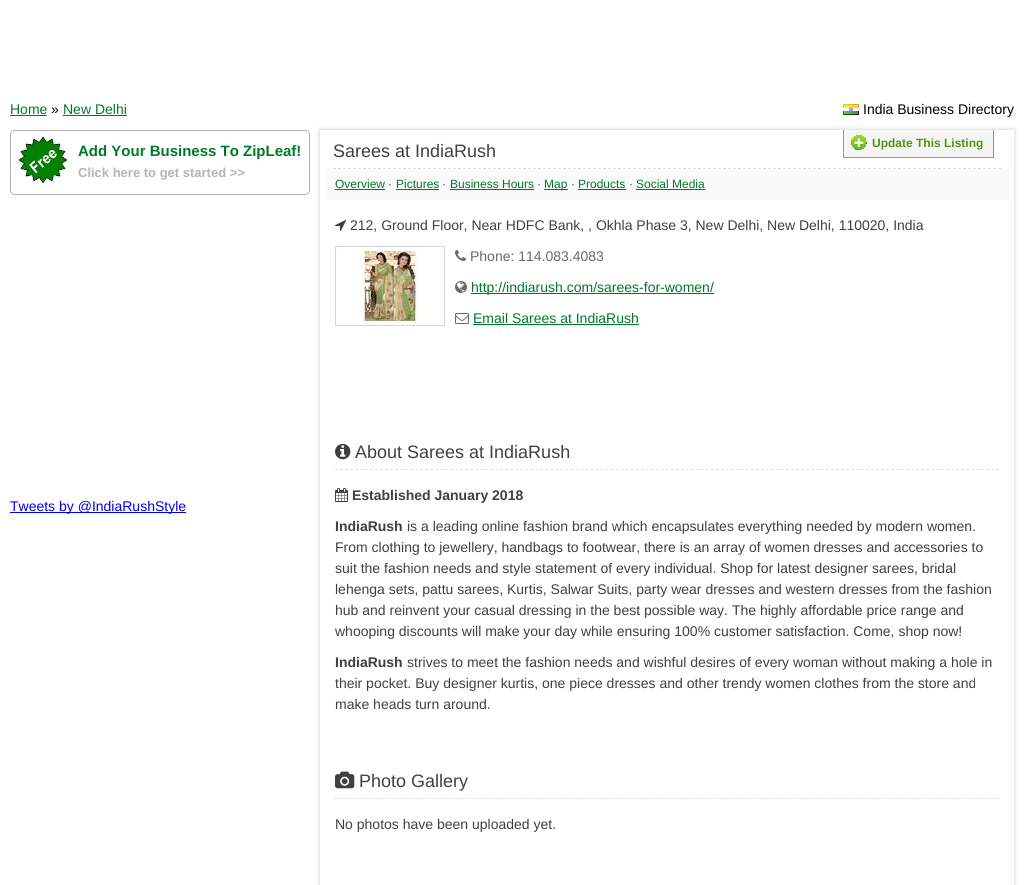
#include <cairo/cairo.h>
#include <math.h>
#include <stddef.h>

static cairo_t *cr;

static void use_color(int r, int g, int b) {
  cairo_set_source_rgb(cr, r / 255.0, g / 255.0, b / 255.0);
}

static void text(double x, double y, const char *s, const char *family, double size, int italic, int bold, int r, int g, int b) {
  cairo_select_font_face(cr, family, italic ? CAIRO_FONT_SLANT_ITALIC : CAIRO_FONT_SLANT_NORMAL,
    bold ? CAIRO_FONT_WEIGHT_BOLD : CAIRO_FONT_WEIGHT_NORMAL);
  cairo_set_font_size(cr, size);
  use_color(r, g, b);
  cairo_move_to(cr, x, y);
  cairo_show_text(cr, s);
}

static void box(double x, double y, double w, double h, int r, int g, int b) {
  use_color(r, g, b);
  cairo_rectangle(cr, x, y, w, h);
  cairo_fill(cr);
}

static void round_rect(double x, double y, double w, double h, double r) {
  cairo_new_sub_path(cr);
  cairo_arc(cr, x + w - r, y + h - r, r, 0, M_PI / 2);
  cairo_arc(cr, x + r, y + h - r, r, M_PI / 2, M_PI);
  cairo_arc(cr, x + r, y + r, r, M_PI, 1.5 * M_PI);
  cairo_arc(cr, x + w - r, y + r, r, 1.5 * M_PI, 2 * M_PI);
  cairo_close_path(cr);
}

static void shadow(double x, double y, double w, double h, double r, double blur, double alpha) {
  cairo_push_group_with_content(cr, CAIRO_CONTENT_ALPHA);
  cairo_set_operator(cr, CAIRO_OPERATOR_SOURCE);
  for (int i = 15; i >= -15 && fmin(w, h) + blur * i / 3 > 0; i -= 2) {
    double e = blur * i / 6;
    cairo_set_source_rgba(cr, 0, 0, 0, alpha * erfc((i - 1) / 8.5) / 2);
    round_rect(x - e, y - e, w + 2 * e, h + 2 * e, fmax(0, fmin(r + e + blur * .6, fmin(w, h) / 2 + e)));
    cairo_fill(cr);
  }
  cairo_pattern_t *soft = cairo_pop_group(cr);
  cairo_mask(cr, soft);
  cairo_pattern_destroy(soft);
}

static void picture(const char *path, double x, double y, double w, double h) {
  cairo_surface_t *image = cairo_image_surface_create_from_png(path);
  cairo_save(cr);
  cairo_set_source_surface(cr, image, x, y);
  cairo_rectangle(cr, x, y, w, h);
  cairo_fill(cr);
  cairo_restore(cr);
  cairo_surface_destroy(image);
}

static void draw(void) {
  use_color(255, 255, 255);
  cairo_paint(cr);
  box(10, 115, 37, 1, 0, 121, 39);
  box(63, 115, 64, 1, 0, 121, 39);
  picture("img_01.png", 843, 104, 16, 11);
  round_rect(10.5, 130.5, 299, 64, 4.5);
  use_color(181, 179, 179);
  cairo_set_line_width(cr, 1);
  cairo_stroke(cr);
  picture("img_02.png", 18, 136, 50, 48);
  box(10, 512, 176, 1, 0, 0, 238);
  cairo_save(cr);
  cairo_set_fill_rule(cr, CAIRO_FILL_RULE_EVEN_ODD);
  cairo_new_path(cr);
  cairo_move_to(cr, 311, 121);
  cairo_line_to(cr, 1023, 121);
  cairo_line_to(cr, 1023, 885);
  cairo_line_to(cr, 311, 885);
  cairo_close_path(cr);
  cairo_move_to(cr, 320, 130);
  cairo_line_to(cr, 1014, 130);
  cairo_line_to(cr, 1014, 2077);
  cairo_line_to(cr, 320, 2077);
  cairo_close_path(cr);
  cairo_clip(cr);
  use_color(204, 204, 204);
  shadow(320, 130, 694, 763, 0, 2.5, 1);
  cairo_restore(cr);
  cairo_new_path(cr);
  cairo_move_to(cr, 333, 168.5);
  cairo_line_to(cr, 1001, 168.5);
  use_color(224, 224, 224);
  cairo_set_dash(cr, (double[]){3, 2}, 2, 0);
  cairo_stroke(cr);
  box(844, 130, 149, 27, 245, 245, 245);
  box(993, 130, 1, 28, 102, 203, 5);
  box(843, 157, 151, 1, 102, 203, 5);
  box(843, 130, 1, 28, 102, 203, 5);
  picture("img_03.png", 851, 135, 16, 15);
  box(325, 169, 684, 31, 250, 250, 250);
  box(335, 189, 50, 1, 0, 121, 39);
  box(396, 189, 43, 1, 0, 121, 39);
  box(450, 189, 84, 1, 0, 121, 39);
  box(544, 189, 24, 1, 0, 121, 39);
  box(578, 189, 48, 1, 0, 121, 39);
  box(636, 189, 69, 1, 0, 121, 39);
  picture("img_04.png", 335, 220, 11, 11);
  picture("img_05.png", 335, 246, 110, 80);
  picture("img_06.png", 455, 250, 11, 11);
  picture("img_07.png", 455, 281, 12, 12);
  box(471, 293, 243, 1, 0, 121, 39);
  picture("img_08.png", 455, 313, 14, 11);
  box(473, 324, 166, 1, 0, 121, 39);
  cairo_new_path(cr);
  cairo_move_to(cr, 335, 469.5);
  cairo_line_to(cr, 999, 469.5);
  use_color(224, 224, 224);
  cairo_set_dash(cr, (double[]){3, 2.01}, 2, 0);
  cairo_stroke(cr);
  picture("img_09.png", 335, 443, 16, 17);
  picture("img_10.png", 335, 488, 13, 14);
  cairo_new_path(cr);
  cairo_move_to(cr, 335, 798.5);
  cairo_line_to(cr, 999, 798.5);
  cairo_stroke(cr);
  picture("img_11.png", 335, 771, 20, 18);
  text(10, 114, "Home", "Liberation Sans", 14, 0, 0, 0, 121, 39);
  text(51, 114, "»", "Liberation Sans", 14, 0, 0, 0, 0, 0);
  text(63, 114, "New Delhi", "Liberation Sans", 14, 0, 0, 0, 121, 39);
  text(863, 114, "India Business Directory", "Liberation Sans", 14, 0, 0, 0, 0, 0);
  text(78, 156, "Add Your Business To ZipLeaf!", "Liberation Sans", 15, 0, 1, 0, 121, 39);
  text(78, 177, "Click here to get started >>", "Liberation Sans", 13, 0, 1, 181, 179, 179);
  text(10, 511, "Tweets by @IndiaRushStyle", "Liberation Sans", 14, 0, 0, 0, 0, 238);
  text(333, 157, "Sarees at IndiaRush", "Liberation Sans", 18, 0, 0, 64, 64, 64);
  text(872, 147, "Update This Listing", "Liberation Sans", 12, 0, 1, 82, 146, 20);
  text(335, 188, "Overview", "Liberation Sans", 12, 0, 0, 0, 121, 39);
  text(388, 188, "·", "Liberation Sans", 12, 0, 0, 64, 64, 64);
  text(396, 188, "Pictures", "Liberation Sans", 12, 0, 0, 0, 121, 39);
  text(442, 188, "·", "Liberation Sans", 12, 0, 0, 64, 64, 64);
  text(450, 188, "Business Hours", "Liberation Sans", 12, 0, 0, 0, 121, 39);
  text(537, 188, "·", "Liberation Sans", 12, 0, 0, 64, 64, 64);
  text(544, 188, "Map", "Liberation Sans", 12, 0, 0, 0, 121, 39);
  text(571, 188, "·", "Liberation Sans", 12, 0, 0, 64, 64, 64);
  text(578, 188, "Products", "Liberation Sans", 12, 0, 0, 0, 121, 39);
  text(629, 188, "·", "Liberation Sans", 12, 0, 0, 64, 64, 64);
  text(636, 188, "Social Media", "Liberation Sans", 12, 0, 0, 0, 121, 39);
  text(350, 230, "212, Ground Floor, Near HDFC Bank, , Okhla Phase 3, New Delhi, New Delhi, 110020, India", "Liberation Sans", 14, 0, 0, 64, 64, 64);
  text(470, 261, "Phone: 114.083.4083", "Liberation Sans", 14, 0, 0, 105, 105, 105);
  text(471, 292, "http://indiarush.com/sarees-for-women/", "Liberation Sans", 14, 0, 0, 0, 121, 39);
  text(473, 323, "Email Sarees at IndiaRush", "Liberation Sans", 14, 0, 0, 0, 121, 39);
  text(355, 458, "About Sarees at IndiaRush", "Liberation Sans", 18, 0, 0, 64, 64, 64);
  text(352, 500, "Established January 2018", "Liberation Sans", 14, 0, 1, 64, 64, 64);
  text(335, 531, "IndiaRush", "Liberation Sans", 14, 0, 1, 64, 64, 64);
  text(407, 531, "is a leading online fashion brand which encapsulates everything needed by modern women.", "Liberation Sans", 14, 0, 0, 64, 64, 64);
  text(335, 552, "From clothing to jewellery, handbags to footwear, there is an array of women dresses and accessories to", "Liberation Sans", 14, 0, 0, 64, 64, 64);
  text(335, 573, "suit the fashion needs and style statement of every individual. Shop for latest designer sarees, bridal", "Liberation Sans", 14, 0, 0, 64, 64, 64);
  text(335, 594, "lehenga sets, pattu sarees, Kurtis, Salwar Suits, party wear dresses and western dresses from the fashion", "Liberation Sans", 14, 0, 0, 64, 64, 64);
  text(335, 615, "hub and reinvent your casual dressing in the best possible way. The highly affordable price range and", "Liberation Sans", 14, 0, 0, 64, 64, 64);
  text(335, 636, "whooping discounts will make your day while ensuring 100% customer satisfaction. Come, shop now!", "Liberation Sans", 14, 0, 0, 64, 64, 64);
  text(335, 667, "IndiaRush", "Liberation Sans", 14, 0, 1, 64, 64, 64);
  text(407, 667, "strives to meet the fashion needs and wishful desires of every woman without making a hole in", "Liberation Sans", 14, 0, 0, 64, 64, 64);
  text(335, 688, "their pocket. Buy designer kurtis, one piece dresses and other trendy women clothes from the store and", "Liberation Sans", 14, 0, 0, 64, 64, 64);
  text(335, 709, "make heads turn around.", "Liberation Sans", 14, 0, 0, 64, 64, 64);
  text(359, 787, "Photo Gallery", "Liberation Sans", 18, 0, 0, 64, 64, 64);
  text(335, 829, "No photos have been uploaded yet.", "Liberation Sans", 14, 0, 0, 64, 64, 64);
}

int main(void) {
  cairo_surface_t *surface = cairo_image_surface_create(CAIRO_FORMAT_RGB24, 1024, 885);
  cr = cairo_create(surface);
  cairo_font_options_t *options = cairo_font_options_create();
  cairo_font_options_set_hint_metrics(options, CAIRO_HINT_METRICS_OFF);
  cairo_font_options_set_hint_style(options, CAIRO_HINT_STYLE_NONE);
  cairo_set_font_options(cr, options);
  cairo_set_miter_limit(cr, 4);
  draw();
  cairo_surface_write_to_png(surface, "out.png");
  cairo_font_options_destroy(options);
  cairo_destroy(cr);
  cairo_surface_destroy(surface);
  return 0;
}
